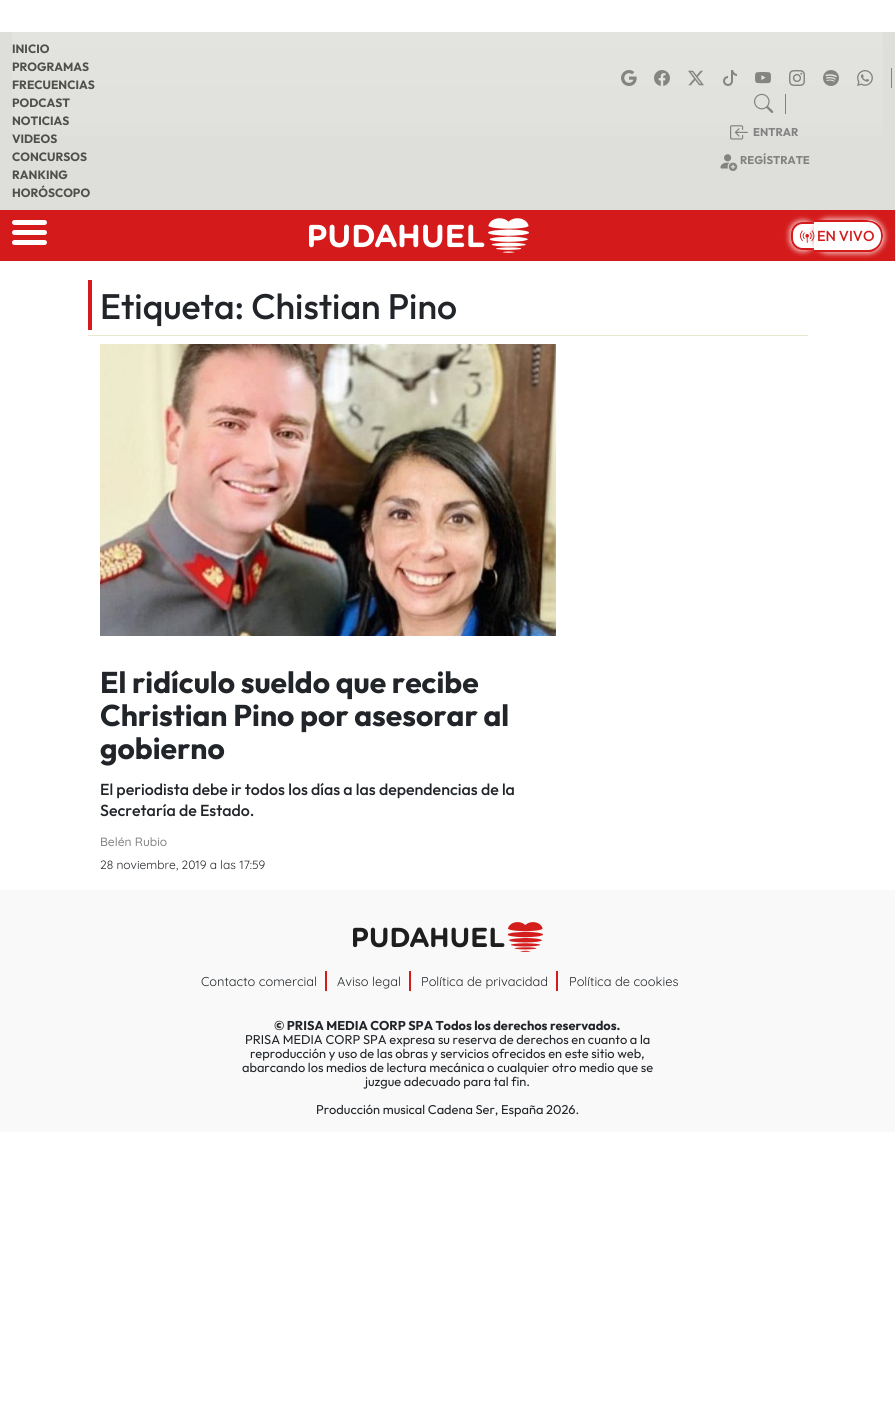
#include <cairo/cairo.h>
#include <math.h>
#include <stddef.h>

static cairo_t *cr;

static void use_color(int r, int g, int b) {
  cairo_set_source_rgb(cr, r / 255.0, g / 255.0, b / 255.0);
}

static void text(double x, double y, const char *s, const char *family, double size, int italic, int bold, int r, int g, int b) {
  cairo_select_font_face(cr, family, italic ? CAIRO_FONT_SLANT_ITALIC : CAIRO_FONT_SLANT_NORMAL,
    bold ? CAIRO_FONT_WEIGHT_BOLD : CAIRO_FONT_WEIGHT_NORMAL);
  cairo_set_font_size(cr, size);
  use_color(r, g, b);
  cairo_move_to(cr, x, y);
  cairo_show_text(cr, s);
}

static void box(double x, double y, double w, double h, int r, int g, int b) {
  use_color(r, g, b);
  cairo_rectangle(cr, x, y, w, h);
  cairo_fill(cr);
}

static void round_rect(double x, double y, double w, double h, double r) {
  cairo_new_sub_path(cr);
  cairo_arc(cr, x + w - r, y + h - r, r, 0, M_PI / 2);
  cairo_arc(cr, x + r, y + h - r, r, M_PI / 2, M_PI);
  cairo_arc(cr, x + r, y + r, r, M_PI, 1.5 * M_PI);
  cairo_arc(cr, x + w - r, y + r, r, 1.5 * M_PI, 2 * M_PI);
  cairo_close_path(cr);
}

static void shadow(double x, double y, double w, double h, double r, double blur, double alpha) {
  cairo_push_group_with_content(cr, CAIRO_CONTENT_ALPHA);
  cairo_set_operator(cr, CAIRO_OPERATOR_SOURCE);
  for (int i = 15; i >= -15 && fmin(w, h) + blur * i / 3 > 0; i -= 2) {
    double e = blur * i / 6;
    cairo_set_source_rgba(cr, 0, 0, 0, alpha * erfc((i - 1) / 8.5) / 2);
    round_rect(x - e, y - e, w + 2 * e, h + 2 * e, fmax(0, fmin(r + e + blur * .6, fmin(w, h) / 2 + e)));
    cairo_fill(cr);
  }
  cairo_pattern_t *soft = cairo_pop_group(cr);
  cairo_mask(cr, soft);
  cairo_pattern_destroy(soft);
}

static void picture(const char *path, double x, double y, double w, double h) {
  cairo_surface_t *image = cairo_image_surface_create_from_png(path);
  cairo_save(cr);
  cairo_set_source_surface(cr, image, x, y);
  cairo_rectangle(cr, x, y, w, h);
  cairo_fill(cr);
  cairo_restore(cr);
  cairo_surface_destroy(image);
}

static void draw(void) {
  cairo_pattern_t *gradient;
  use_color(255, 255, 255);
  cairo_paint(cr);
  box(0, 32, 895, 178, 222, 222, 218);
  gradient = cairo_pattern_create_linear(448, 32, 448, 210);
  cairo_pattern_add_color_stop_rgba(gradient, 0, 0.89, 0.89, 0.878, 1);
  cairo_pattern_add_color_stop_rgba(gradient, 1, 0.871, 0.871, 0.855, 1);
  cairo_set_source(cr, gradient);
  cairo_pattern_destroy(gradient);
  cairo_rectangle(cr, 12, 32, 871, 104);
  cairo_fill(cr);
  picture("img_01.png", 621, 70, 16, 16);
  picture("img_02.png", 654, 70, 16, 16);
  picture("img_03.png", 688, 70, 16, 16);
  picture("img_04.png", 723, 70, 14, 16);
  picture("img_05.png", 755, 72, 16, 12);
  picture("img_06.png", 789, 70, 16, 16);
  picture("img_07.png", 823, 70, 16, 16);
  picture("img_08.png", 857, 70, 16, 16);
  box(891, 68, 1, 20, 130, 130, 128);
  picture("img_09.png", 754, 93, 20, 20);
  box(785, 94, 1, 20, 131, 131, 130);
  picture("img_10.png", 730, 125, 18, 15);
  picture("img_11.png", 720, 154, 18, 17);
  box(0, 210, 895, 51, 212, 26, 26);
  use_color(255, 255, 255);
  round_rect(12, 220, 35, 5, 2.5);
  cairo_fill(cr);
  round_rect(12, 230, 35, 5, 2.5);
  cairo_fill(cr);
  round_rect(12, 240, 35, 5, 2.5);
  cairo_fill(cr);
  picture("img_12.png", 309, 218, 220, 35);
  use_color(238, 176, 176);
  shadow(789, 220, 27, 32, 13.5, 2.5, 1);
  use_color(255, 255, 255);
  cairo_new_path(cr);
  cairo_move_to(cr, 802.5, 222);
  cairo_line_to(cr, 814, 222);
  cairo_line_to(cr, 814, 250);
  cairo_line_to(cr, 802.5, 250);
  cairo_curve_to(cr, 796, 250, 791, 245, 791, 238.5);
  cairo_line_to(cr, 791, 233.5);
  cairo_curve_to(cr, 791, 227, 796, 222, 802.5, 222);
  cairo_close_path(cr);
  cairo_fill(cr);
  use_color(212, 26, 26);
  cairo_set_fill_rule(cr, CAIRO_FILL_RULE_EVEN_ODD);
  cairo_new_path(cr);
  cairo_move_to(cr, 802.5, 222);
  cairo_line_to(cr, 814, 222);
  cairo_line_to(cr, 814, 250);
  cairo_line_to(cr, 802.5, 250);
  cairo_curve_to(cr, 796, 250, 791, 245, 791, 238.5);
  cairo_line_to(cr, 791, 233.5);
  cairo_curve_to(cr, 791, 227, 796, 222, 802.5, 222);
  cairo_close_path(cr);
  cairo_move_to(cr, 802.5, 224);
  cairo_line_to(cr, 814, 224);
  cairo_line_to(cr, 814, 248);
  cairo_line_to(cr, 802.5, 248);
  cairo_curve_to(cr, 797.5, 248, 793, 243.5, 793, 238.5);
  cairo_line_to(cr, 793, 233.5);
  cairo_curve_to(cr, 793, 228.5, 797.5, 224, 802.5, 224);
  cairo_close_path(cr);
  cairo_fill(cr);
  use_color(238, 176, 176);
  shadow(812, 218, 73, 36, 17, 2.5, 1);
  use_color(255, 255, 255);
  cairo_new_path(cr);
  cairo_move_to(cr, 814, 220);
  cairo_line_to(cr, 868, 220);
  cairo_curve_to(cr, 876.5, 220, 883, 226.5, 883, 235);
  cairo_line_to(cr, 883, 237);
  cairo_curve_to(cr, 883, 245.5, 876.5, 252, 868, 252);
  cairo_line_to(cr, 814, 252);
  cairo_close_path(cr);
  cairo_fill(cr);
  use_color(212, 26, 26);
  cairo_new_path(cr);
  cairo_move_to(cr, 814, 220);
  cairo_line_to(cr, 850, 220);
  cairo_curve_to(cr, 863, 220, 882, 217, 883, 235);
  cairo_curve_to(cr, 883, 243, 879, 250, 871, 252);
  cairo_line_to(cr, 814, 252);
  cairo_close_path(cr);
  cairo_move_to(cr, 814, 222);
  cairo_line_to(cr, 868, 222);
  cairo_curve_to(cr, 875, 222, 881, 228, 881, 235);
  cairo_line_to(cr, 881, 237);
  cairo_curve_to(cr, 881, 244, 875, 250, 868, 250);
  cairo_line_to(cr, 814, 250);
  cairo_close_path(cr);
  cairo_fill(cr);
  picture("img_13.png", 800, 230, 15, 13);
  box(88, 335, 720, 1, 231, 233, 205);
  box(88, 280, 4, 50, 212, 26, 26);
  picture("img_14.png", 100, 344, 456, 292);
  box(0, 890, 895, 242, 249, 249, 249);
  picture("img_15.png", 353, 922, 190, 30);
  box(325, 971, 2, 20, 212, 26, 26);
  box(409, 971, 2, 20, 212, 26, 26);
  box(556, 971, 2, 20, 212, 26, 26);
  text(12, 53, "INICIO", "Outfit", 12, 0, 1, 79, 79, 78);
  text(12, 71, "PROGRAMAS", "Outfit", 12, 0, 1, 79, 79, 78);
  text(12, 89, "FRECUENCIAS", "Outfit", 12, 0, 1, 79, 79, 78);
  text(12, 107, "PODCAST", "Outfit", 12, 0, 1, 79, 79, 78);
  text(12, 125, "NOTICIAS", "Outfit", 12, 0, 1, 79, 79, 78);
  text(12, 143, "VIDEOS", "Outfit", 12, 0, 1, 79, 79, 78);
  text(12, 161, "CONCURSOS", "Outfit", 12, 0, 1, 79, 79, 78);
  text(12, 179, "RANKING", "Outfit", 12, 0, 1, 79, 79, 78);
  text(12, 197, "HORÓSCOPO", "Outfit", 12, 0, 1, 79, 79, 78);
  text(753, 136, "ENTRAR", "Outfit", 11.25, 0, 1, 129, 129, 129);
  text(740, 164, "REGÍSTRATE", "Outfit", 11.25, 0, 1, 129, 129, 129);
  text(817, 241, "EN VIVO", "Outfit Medium", 14.5, 0, 0, 212, 26, 26);
  text(100, 319, "Etiqueta: Chistian Pino", "Outfit Medium", 35.5, 0, 0, 33, 37, 41);
  text(100, 693, "El ridículo sueldo que recibe", "Outfit", 30, 0, 1, 33, 37, 41);
  text(100, 726, "Christian Pino por asesorar al", "Outfit", 30, 0, 1, 33, 37, 41);
  text(100, 759, "gobierno", "Outfit", 30, 0, 1, 33, 37, 41);
  text(100, 795, "El periodista debe ir todos los días a las dependencias de la", "Outfit Medium", 16, 0, 0, 33, 37, 41);
  text(100, 816, "Secretaría de Estado.", "Outfit Medium", 16, 0, 0, 33, 37, 41);
  text(100, 846, "Belén Rubio", "Quicksand Medium", 12, 0, 0, 129, 129, 129);
  text(100, 869, "28 noviembre, 2019 a las 17:59", "Quicksand", 12, 0, 0, 33, 37, 41);
  text(201, 986, "Contacto comercial", "Quicksand", 12.8, 0, 0, 33, 37, 41);
  text(337, 986, "Aviso legal", "Quicksand", 12.8, 0, 0, 33, 37, 41);
  text(421, 986, "Política de privacidad", "Quicksand", 12.8, 0, 0, 33, 37, 41);
  text(569, 986, "Política de cookies", "Quicksand", 12.8, 0, 0, 33, 37, 41);
  text(274, 1030, "© PRISA MEDIA CORP SPA Todos los derechos reservados.", "Outfit", 12.8, 0, 1, 33, 37, 41);
  text(245, 1044, "PRISA MEDIA CORP SPA expresa su reserva de derechos en cuanto a la", "Outfit", 12.8, 0, 0, 33, 37, 41);
  text(250, 1058, "reproducción y uso de las obras y servicios ofrecidos en este sitio web,", "Outfit", 12.8, 0, 0, 33, 37, 41);
  text(242, 1072, "abarcando los medios de lectura mecánica o cualquier otro medio que se", "Outfit", 12.8, 0, 0, 33, 37, 41);
  text(365, 1086, "juzgue adecuado para tal fin.", "Outfit", 12.8, 0, 0, 33, 37, 41);
  text(316, 1114, "Producción musical Cadena Ser, España 2026.", "Outfit", 12.8, 0, 0, 33, 37, 41);
}

int main(void) {
  cairo_surface_t *surface = cairo_image_surface_create(CAIRO_FORMAT_RGB24, 895, 1428);
  cr = cairo_create(surface);
  cairo_font_options_t *options = cairo_font_options_create();
  cairo_font_options_set_hint_metrics(options, CAIRO_HINT_METRICS_OFF);
  cairo_font_options_set_hint_style(options, CAIRO_HINT_STYLE_NONE);
  cairo_set_font_options(cr, options);
  cairo_set_miter_limit(cr, 4);
  draw();
  cairo_surface_write_to_png(surface, "out.png");
  cairo_font_options_destroy(options);
  cairo_destroy(cr);
  cairo_surface_destroy(surface);
  return 0;
}
